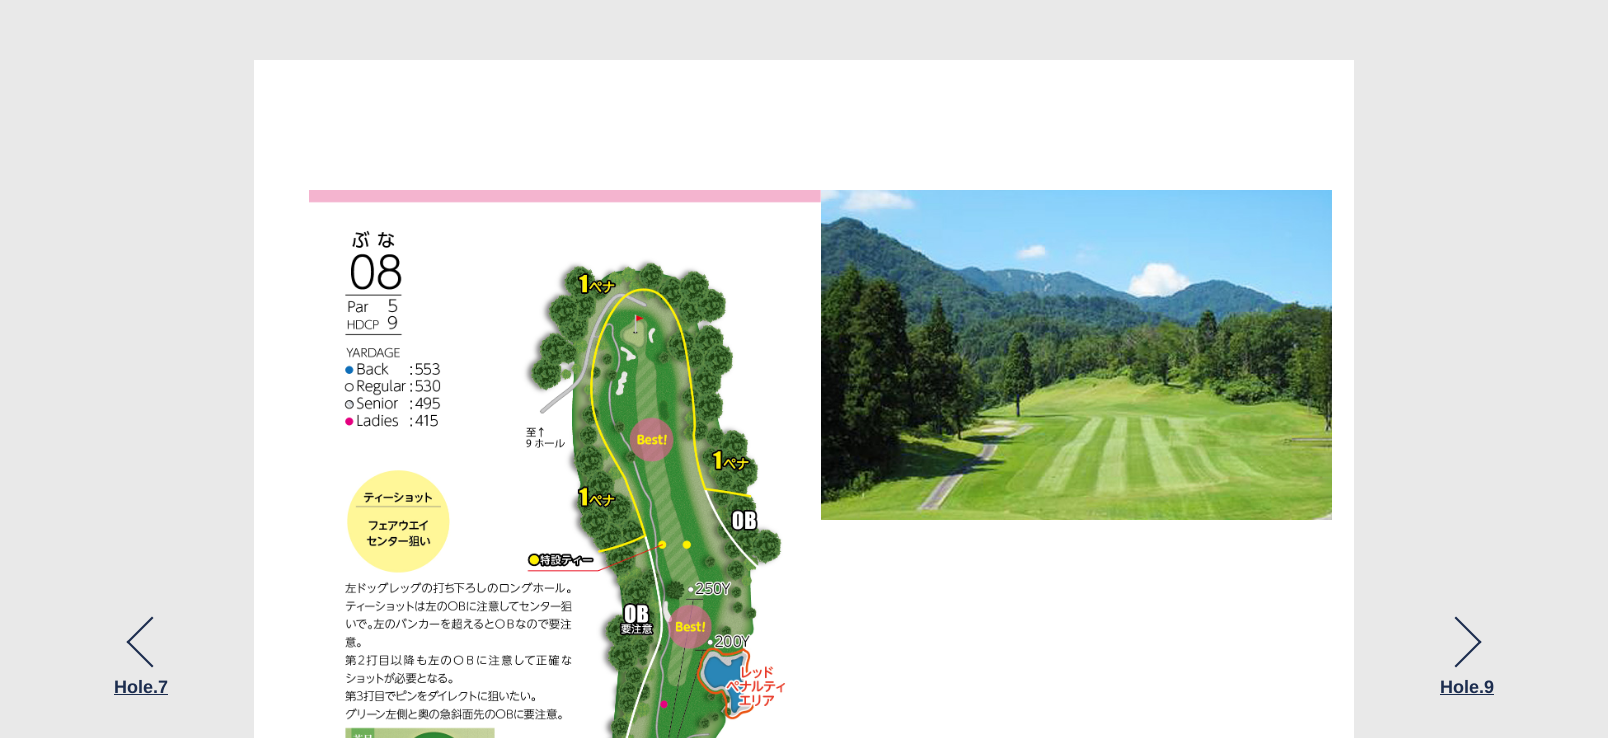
#include <cairo/cairo.h>
#include <math.h>
#include <stddef.h>

static cairo_t *cr;

static void use_color(int r, int g, int b) {
  cairo_set_source_rgb(cr, r / 255.0, g / 255.0, b / 255.0);
}

static void text(double x, double y, const char *s, const char *family, double size, int italic, int bold, int r, int g, int b) {
  cairo_select_font_face(cr, family, italic ? CAIRO_FONT_SLANT_ITALIC : CAIRO_FONT_SLANT_NORMAL,
    bold ? CAIRO_FONT_WEIGHT_BOLD : CAIRO_FONT_WEIGHT_NORMAL);
  cairo_set_font_size(cr, size);
  use_color(r, g, b);
  cairo_move_to(cr, x, y);
  cairo_show_text(cr, s);
}

static void box(double x, double y, double w, double h, int r, int g, int b) {
  use_color(r, g, b);
  cairo_rectangle(cr, x, y, w, h);
  cairo_fill(cr);
}

static void picture(const char *path, double x, double y, double w, double h) {
  cairo_surface_t *image = cairo_image_surface_create_from_png(path);
  cairo_save(cr);
  cairo_set_source_surface(cr, image, x, y);
  cairo_rectangle(cr, x, y, w, h);
  cairo_fill(cr);
  cairo_restore(cr);
  cairo_surface_destroy(image);
}

static void draw(void) {
  use_color(233, 233, 233);
  cairo_paint(cr);
  use_color(28, 45, 79);
  cairo_new_path(cr);
  cairo_move_to(cr, 152, 667.5);
  cairo_line_to(cr, 126.5, 642);
  cairo_line_to(cr, 128, 640.5);
  cairo_line_to(cr, 153.5, 666);
  cairo_close_path(cr);
  cairo_fill(cr);
  cairo_new_path(cr);
  cairo_move_to(cr, 128, 643.5);
  cairo_line_to(cr, 126.5, 642);
  cairo_line_to(cr, 152, 616.5);
  cairo_line_to(cr, 153.5, 618);
  cairo_close_path(cr);
  cairo_fill(cr);
  box(114, 694, 54, 1, 28, 45, 79);
  box(254, 60, 1100, 678, 255, 255, 255);
  picture("img_01.png", 309, 190, 512, 548);
  picture("img_02.png", 821, 190, 511, 330);
  use_color(28, 45, 79);
  cairo_new_path(cr);
  cairo_move_to(cr, 1456, 616.5);
  cairo_line_to(cr, 1481.5, 642);
  cairo_line_to(cr, 1480, 643.5);
  cairo_line_to(cr, 1454.5, 618);
  cairo_close_path(cr);
  cairo_fill(cr);
  cairo_new_path(cr);
  cairo_move_to(cr, 1480, 640.5);
  cairo_line_to(cr, 1481.5, 642);
  cairo_line_to(cr, 1456, 667.5);
  cairo_line_to(cr, 1454.5, 666);
  cairo_close_path(cr);
  cairo_fill(cr);
  box(1440, 694, 54, 1, 28, 45, 79);
  text(114, 693, "Hole.7", "Liberation Sans", 18, 0, 1, 28, 45, 79);
  text(1440, 693, "Hole.9", "Liberation Sans", 18, 0, 1, 28, 45, 79);
}

int main(void) {
  cairo_surface_t *surface = cairo_image_surface_create(CAIRO_FORMAT_RGB24, 1608, 738);
  cr = cairo_create(surface);
  cairo_font_options_t *options = cairo_font_options_create();
  cairo_font_options_set_hint_metrics(options, CAIRO_HINT_METRICS_OFF);
  cairo_font_options_set_hint_style(options, CAIRO_HINT_STYLE_NONE);
  cairo_set_font_options(cr, options);
  cairo_set_miter_limit(cr, 4);
  draw();
  cairo_surface_write_to_png(surface, "out.png");
  cairo_font_options_destroy(options);
  cairo_destroy(cr);
  cairo_surface_destroy(surface);
  return 0;
}
